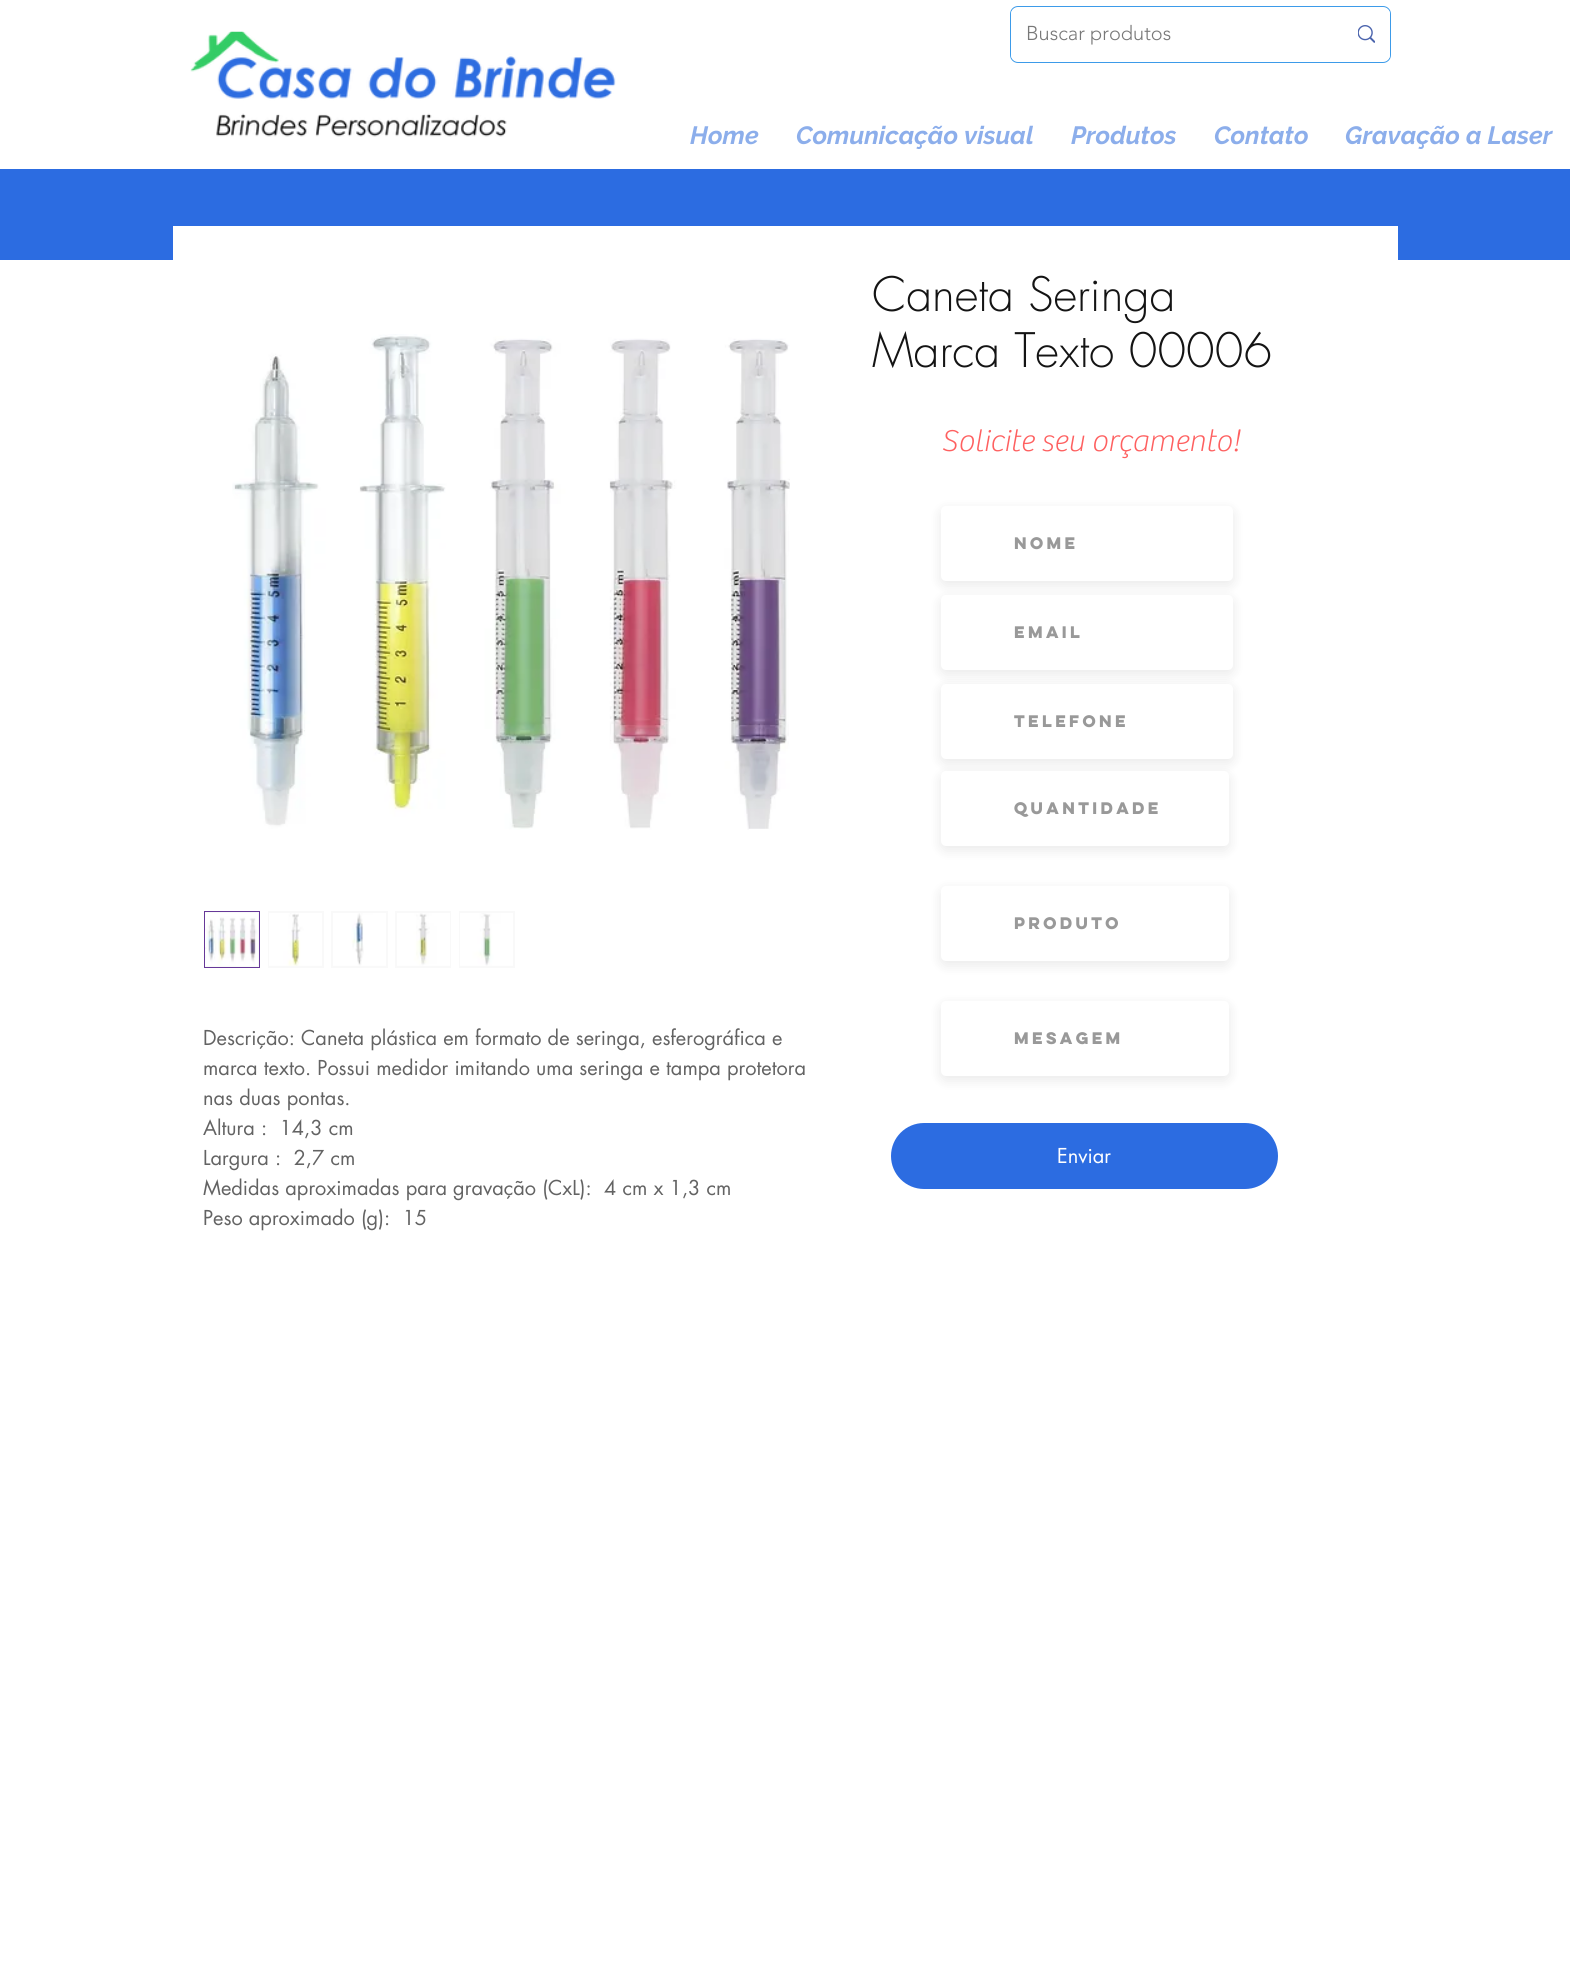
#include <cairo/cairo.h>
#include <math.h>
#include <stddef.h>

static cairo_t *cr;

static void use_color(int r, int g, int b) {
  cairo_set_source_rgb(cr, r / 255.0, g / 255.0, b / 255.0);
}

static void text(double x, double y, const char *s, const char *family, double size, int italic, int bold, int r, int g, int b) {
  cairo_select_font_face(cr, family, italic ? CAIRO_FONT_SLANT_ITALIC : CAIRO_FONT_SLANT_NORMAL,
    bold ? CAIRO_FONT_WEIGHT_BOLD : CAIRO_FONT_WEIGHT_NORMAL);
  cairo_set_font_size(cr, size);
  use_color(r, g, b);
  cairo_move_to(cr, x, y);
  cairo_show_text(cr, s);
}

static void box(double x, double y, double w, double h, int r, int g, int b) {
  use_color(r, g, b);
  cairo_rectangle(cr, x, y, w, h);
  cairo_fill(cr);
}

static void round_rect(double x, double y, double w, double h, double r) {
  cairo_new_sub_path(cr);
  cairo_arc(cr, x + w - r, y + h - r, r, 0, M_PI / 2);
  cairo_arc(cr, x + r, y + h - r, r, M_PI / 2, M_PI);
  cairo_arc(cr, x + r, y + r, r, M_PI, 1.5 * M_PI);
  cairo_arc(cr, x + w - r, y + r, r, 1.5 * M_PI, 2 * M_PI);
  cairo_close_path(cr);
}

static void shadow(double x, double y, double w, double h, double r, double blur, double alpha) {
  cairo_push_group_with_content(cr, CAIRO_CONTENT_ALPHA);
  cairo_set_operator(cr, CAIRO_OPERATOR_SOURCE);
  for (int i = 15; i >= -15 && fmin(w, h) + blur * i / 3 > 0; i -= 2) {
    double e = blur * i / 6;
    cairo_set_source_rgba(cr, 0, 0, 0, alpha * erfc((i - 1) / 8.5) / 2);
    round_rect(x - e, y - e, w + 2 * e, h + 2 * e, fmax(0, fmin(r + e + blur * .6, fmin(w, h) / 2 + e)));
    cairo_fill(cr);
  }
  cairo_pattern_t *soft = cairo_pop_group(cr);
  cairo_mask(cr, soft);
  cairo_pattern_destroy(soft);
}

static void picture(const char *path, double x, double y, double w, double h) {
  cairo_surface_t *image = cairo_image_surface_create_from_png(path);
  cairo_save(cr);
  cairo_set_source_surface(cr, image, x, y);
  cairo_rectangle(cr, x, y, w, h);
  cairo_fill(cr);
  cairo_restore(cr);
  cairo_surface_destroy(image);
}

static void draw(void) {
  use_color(255, 255, 255);
  cairo_paint(cr);
  picture("img_01.png", 190, 31, 426, 106);
  round_rect(1010.5, 6.5, 380, 56, 7.5);
  use_color(61, 155, 233);
  cairo_set_line_width(cr, 1);
  cairo_stroke(cr);
  use_color(255, 255, 255);
  round_rect(1011, 8, 379, 53, 6);
  cairo_fill(cr);
  picture("img_02.png", 1358, 25, 17, 18);
  box(0, 169, 1570, 91, 44, 108, 225);
  box(173, 226, 1225, 34, 255, 255, 255);
  picture("img_03.png", 232, 334, 558, 496);
  use_color(249, 249, 249);
  cairo_rectangle(cr, 204.5, 911.5, 55, 56);
  cairo_fill_preserve(cr);
  use_color(102, 56, 152);
  cairo_stroke(cr);
  picture("img_04.png", 205, 913, 53, 53);
  box(268, 911, 56, 57, 249, 249, 249);
  picture("img_05.png", 269, 913, 53, 53);
  box(331, 911, 57, 57, 249, 249, 249);
  picture("img_06.png", 333, 913, 53, 53);
  box(395, 911, 56, 57, 249, 249, 249);
  picture("img_07.png", 397, 913, 53, 53);
  box(459, 911, 56, 57, 249, 249, 249);
  picture("img_08.png", 460, 913, 53, 53);
  use_color(0, 0, 0);
  shadow(940, 509, 294, 77, 6, 6, 0.08);
  use_color(255, 255, 255);
  round_rect(941, 506, 292, 75, 5);
  cairo_fill(cr);
  use_color(0, 0, 0);
  shadow(940, 598, 294, 77, 6, 6, 0.08);
  use_color(255, 255, 255);
  round_rect(941, 595, 292, 75, 5);
  cairo_fill(cr);
  use_color(0, 0, 0);
  shadow(940, 686, 294, 78, 6, 6, 0.08);
  use_color(255, 255, 255);
  round_rect(941, 684, 292, 75, 5);
  cairo_fill(cr);
  use_color(0, 0, 0);
  shadow(940, 774, 290, 77, 6, 6, 0.08);
  use_color(255, 255, 255);
  round_rect(941, 771, 288, 75, 5);
  cairo_fill(cr);
  use_color(0, 0, 0);
  shadow(940, 889, 290, 77, 6, 6, 0.08);
  use_color(255, 255, 255);
  round_rect(941, 886, 288, 75, 5);
  cairo_fill(cr);
  use_color(0, 0, 0);
  shadow(940, 1004, 290, 77, 6, 6, 0.08);
  use_color(255, 255, 255);
  round_rect(941, 1001, 288, 75, 5);
  cairo_fill(cr);
  use_color(44, 108, 225);
  round_rect(891, 1123, 387, 66, 33);
  cairo_fill(cr);
  text(1026, 40, "Buscar produtos", "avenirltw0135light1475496 Light", 20, 0, 0, 120, 120, 120);
  text(690, 144, "Home", "Raleway", 25, 1, 1, 140, 174, 235);
  text(796, 144, "Comunicação visual", "Raleway", 25, 1, 1, 140, 174, 235);
  text(1071, 144, "Produtos", "Raleway", 25, 1, 1, 140, 174, 235);
  text(1214, 144, "Contato", "Raleway", 25, 1, 1, 140, 174, 235);
  text(1345, 144, "Gravação a Laser", "Raleway", 25, 1, 1, 140, 174, 235);
  text(872, 311, "Caneta Seringa", "futura Light", 46.25, 0, 0, 20, 20, 20);
  text(872, 367, "Marca Texto 00006", "futura Light", 46.25, 0, 0, 20, 20, 20);
  text(203, 1045, "Descrição: Caneta plástica em formato de seringa, esferográfica e", "futura", 20, 0, 0, 99, 99, 99);
  text(203, 1075, "marca texto. Possui medidor imitando uma seringa e tampa protetora", "futura", 20, 0, 0, 99, 99, 99);
  text(203, 1105, "nas duas pontas.", "futura", 20, 0, 0, 99, 99, 99);
  text(203, 1135, "Altura :  14,3 cm", "futura", 20, 0, 0, 99, 99, 99);
  text(203, 1165, "Largura :  2,7 cm", "futura", 20, 0, 0, 99, 99, 99);
  text(203, 1195, "Medidas aproximadas para gravação (CxL):  4 cm x 1,3 cm", "futura", 20, 0, 0, 99, 99, 99);
  text(203, 1225, "Peso aproximado (g):  15", "futura", 20, 0, 0, 99, 99, 99);
  text(941, 451, "Solicite seu orçamento!", "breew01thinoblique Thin", 31.25, 0, 0, 254, 96, 96);
  text(1014, 549, "Nome", "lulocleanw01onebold", 15, 0, 1, 153, 153, 153);
  text(1014, 638, "Email", "lulocleanw01onebold", 15, 0, 1, 153, 153, 153);
  text(1014, 727, "Telefone", "lulocleanw01onebold", 15, 0, 1, 153, 153, 153);
  text(1014, 814, "Quantidade", "lulocleanw01onebold", 15, 0, 1, 153, 153, 153);
  text(1014, 929, "Produto", "lulocleanw01onebold", 15, 0, 1, 153, 153, 153);
  text(1014, 1044, "Mesagem", "lulocleanw01onebold", 15, 0, 1, 153, 153, 153);
  text(1057, 1163, "Enviar", "futura", 20, 0, 0, 255, 255, 255);
}

int main(void) {
  cairo_surface_t *surface = cairo_image_surface_create(CAIRO_FORMAT_RGB24, 1570, 1966);
  cr = cairo_create(surface);
  cairo_font_options_t *options = cairo_font_options_create();
  cairo_font_options_set_hint_metrics(options, CAIRO_HINT_METRICS_OFF);
  cairo_font_options_set_hint_style(options, CAIRO_HINT_STYLE_NONE);
  cairo_set_font_options(cr, options);
  cairo_set_miter_limit(cr, 4);
  draw();
  cairo_surface_write_to_png(surface, "out.png");
  cairo_font_options_destroy(options);
  cairo_destroy(cr);
  cairo_surface_destroy(surface);
  return 0;
}
